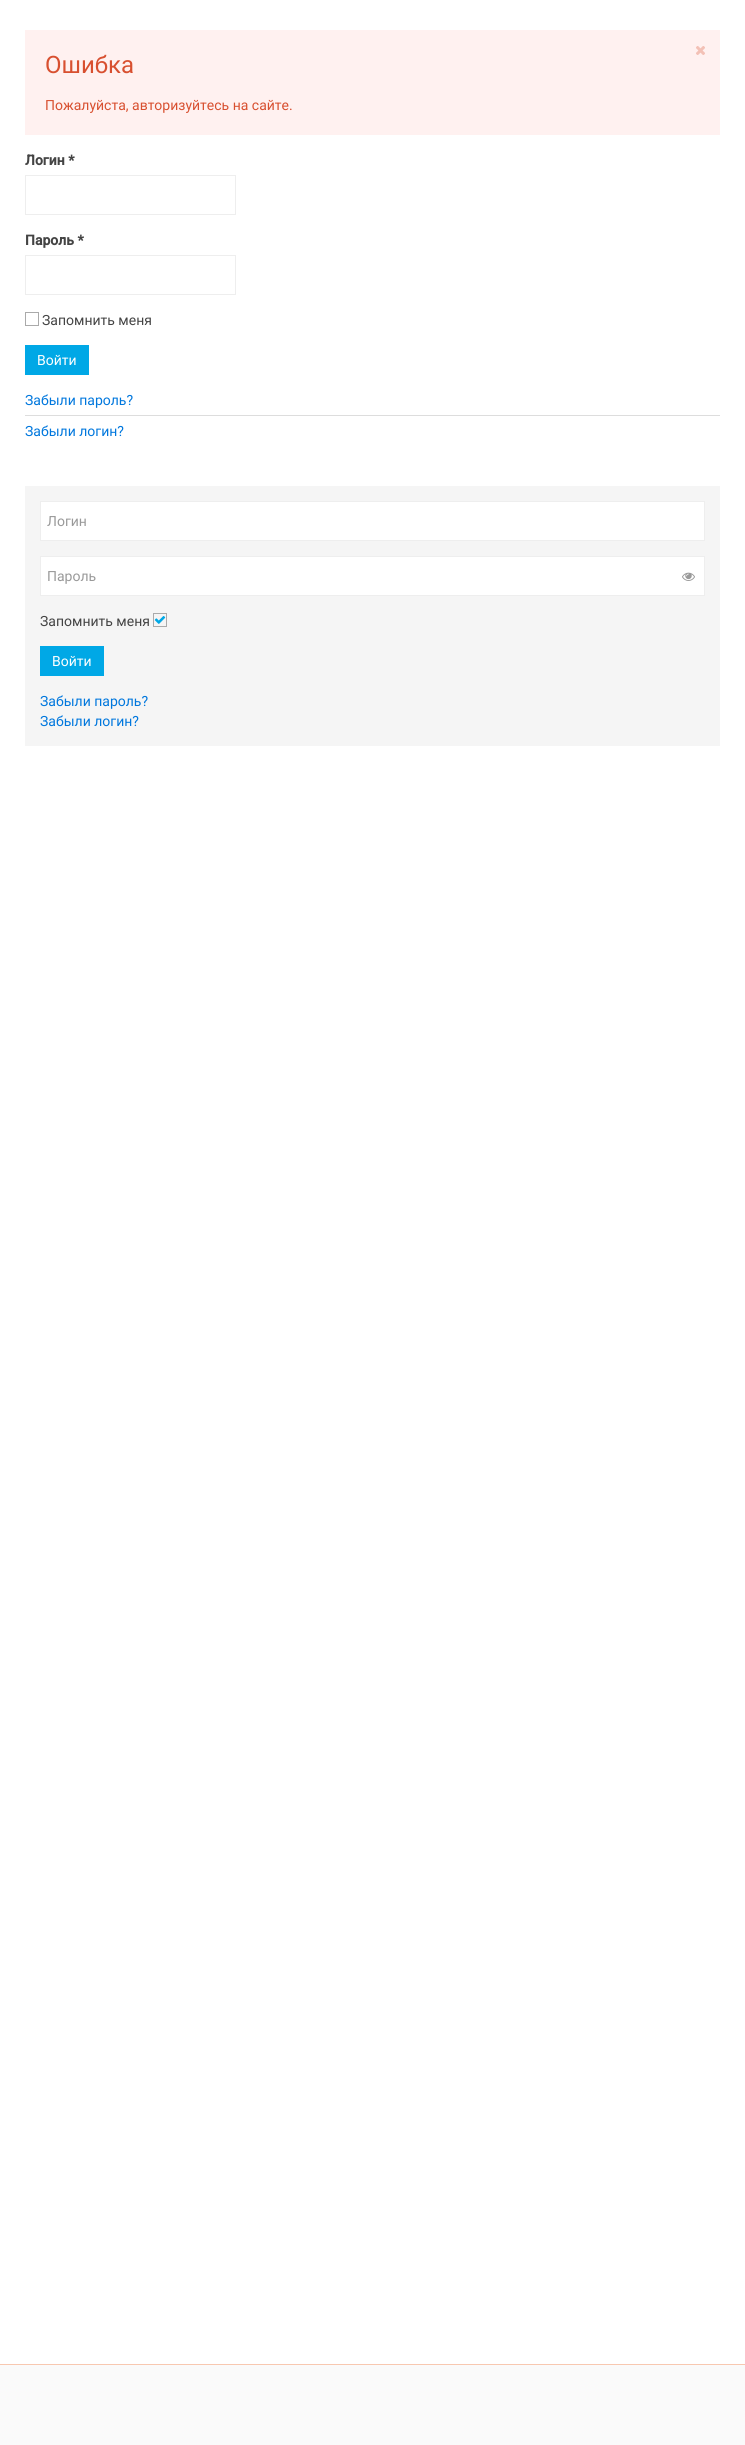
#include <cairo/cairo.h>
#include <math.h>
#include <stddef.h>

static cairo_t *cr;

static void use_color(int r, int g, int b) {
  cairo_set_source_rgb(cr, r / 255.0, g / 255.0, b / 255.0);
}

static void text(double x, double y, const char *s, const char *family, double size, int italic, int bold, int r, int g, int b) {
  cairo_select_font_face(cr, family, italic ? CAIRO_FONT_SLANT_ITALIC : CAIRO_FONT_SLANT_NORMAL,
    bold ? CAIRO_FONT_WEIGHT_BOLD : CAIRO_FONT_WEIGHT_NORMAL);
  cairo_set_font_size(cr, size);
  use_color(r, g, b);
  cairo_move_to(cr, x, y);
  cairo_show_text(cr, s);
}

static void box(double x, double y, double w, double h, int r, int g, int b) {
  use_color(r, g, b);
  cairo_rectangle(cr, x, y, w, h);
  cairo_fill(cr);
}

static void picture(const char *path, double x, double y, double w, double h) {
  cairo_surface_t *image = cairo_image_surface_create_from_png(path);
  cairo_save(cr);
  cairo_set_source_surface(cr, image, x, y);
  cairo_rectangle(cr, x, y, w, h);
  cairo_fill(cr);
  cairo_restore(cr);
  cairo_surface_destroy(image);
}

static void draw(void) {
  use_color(255, 255, 255);
  cairo_paint(cr);
  box(25, 30, 695, 105, 255, 241, 240);
  picture("img_01.png", 696, 46, 9, 9);
  cairo_rectangle(cr, 25.5, 175.5, 210, 39);
  use_color(238, 238, 238);
  cairo_set_line_width(cr, 1);
  cairo_stroke(cr);
  cairo_rectangle(cr, 25.5, 255.5, 210, 39);
  cairo_stroke(cr);
  cairo_rectangle(cr, 25.5, 312.5, 13, 13);
  use_color(170, 170, 170);
  cairo_stroke(cr);
  box(25, 345, 64, 30, 0, 168, 230);
  box(25, 415, 695, 1, 221, 221, 221);
  box(25, 486, 695, 260, 245, 245, 245);
  use_color(255, 255, 255);
  cairo_rectangle(cr, 40.5, 501.5, 664, 39);
  cairo_fill_preserve(cr);
  use_color(238, 238, 238);
  cairo_stroke(cr);
  use_color(255, 255, 255);
  cairo_rectangle(cr, 40.5, 556.5, 664, 39);
  cairo_fill_preserve(cr);
  use_color(238, 238, 238);
  cairo_stroke(cr);
  picture("img_02.png", 682, 572, 13, 9);
  cairo_rectangle(cr, 153.5, 613.5, 13, 13);
  use_color(170, 170, 170);
  cairo_stroke(cr);
  picture("img_03.png", 154, 616, 12, 8);
  box(40, 646, 64, 30, 0, 168, 230);
  box(0, 2365, 745, 80, 250, 250, 250);
  box(0, 2364, 745, 1, 248, 200, 176);
  text(45, 73, "Ошибка", "Roboto", 24, 0, 0, 216, 80, 48);
  text(45, 110, "Пожалуйста, авторизуйтесь на сайте.", "Roboto", 14, 0, 0, 216, 80, 48);
  text(25, 165, "Логин *", "Roboto", 14, 0, 1, 68, 68, 68);
  text(25, 245, "Пароль *", "Roboto", 14, 0, 1, 68, 68, 68);
  text(42, 325, "Запомнить меня", "Roboto", 14, 0, 0, 68, 68, 68);
  text(37, 365, "Войти", "Roboto", 14, 0, 0, 255, 255, 255);
  text(25, 405, "Забыли пароль?", "Roboto", 14, 0, 0, 0, 119, 221);
  text(25, 436, "Забыли логин?", "Roboto", 14, 0, 0, 0, 119, 221);
  text(47, 526, "Логин", "Roboto", 14, 0, 0, 153, 153, 153);
  text(47, 581, "Пароль", "Roboto", 14, 0, 0, 153, 153, 153);
  text(40, 626, "Запомнить меня", "Roboto", 14, 0, 0, 68, 68, 68);
  text(52, 666, "Войти", "Roboto", 14, 0, 0, 255, 255, 255);
  text(40, 706, "Забыли пароль?", "Roboto", 14, 0, 0, 0, 119, 221);
  text(40, 726, "Забыли логин?", "Roboto", 14, 0, 0, 0, 119, 221);
}

int main(void) {
  cairo_surface_t *surface = cairo_image_surface_create(CAIRO_FORMAT_RGB24, 745, 2445);
  cr = cairo_create(surface);
  cairo_font_options_t *options = cairo_font_options_create();
  cairo_font_options_set_hint_metrics(options, CAIRO_HINT_METRICS_OFF);
  cairo_font_options_set_hint_style(options, CAIRO_HINT_STYLE_NONE);
  cairo_set_font_options(cr, options);
  cairo_set_miter_limit(cr, 4);
  draw();
  cairo_surface_write_to_png(surface, "out.png");
  cairo_font_options_destroy(options);
  cairo_destroy(cr);
  cairo_surface_destroy(surface);
  return 0;
}
